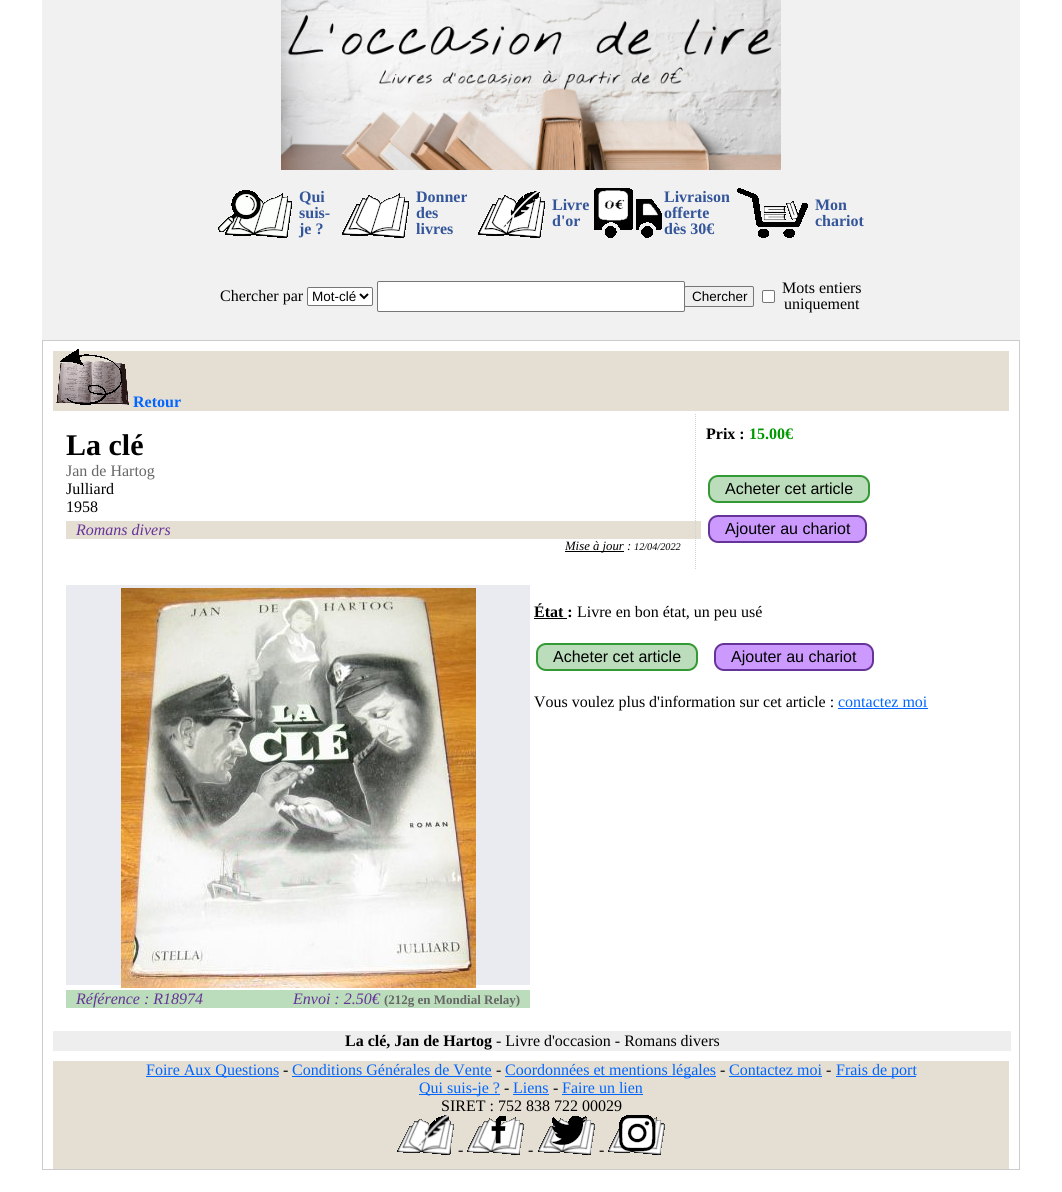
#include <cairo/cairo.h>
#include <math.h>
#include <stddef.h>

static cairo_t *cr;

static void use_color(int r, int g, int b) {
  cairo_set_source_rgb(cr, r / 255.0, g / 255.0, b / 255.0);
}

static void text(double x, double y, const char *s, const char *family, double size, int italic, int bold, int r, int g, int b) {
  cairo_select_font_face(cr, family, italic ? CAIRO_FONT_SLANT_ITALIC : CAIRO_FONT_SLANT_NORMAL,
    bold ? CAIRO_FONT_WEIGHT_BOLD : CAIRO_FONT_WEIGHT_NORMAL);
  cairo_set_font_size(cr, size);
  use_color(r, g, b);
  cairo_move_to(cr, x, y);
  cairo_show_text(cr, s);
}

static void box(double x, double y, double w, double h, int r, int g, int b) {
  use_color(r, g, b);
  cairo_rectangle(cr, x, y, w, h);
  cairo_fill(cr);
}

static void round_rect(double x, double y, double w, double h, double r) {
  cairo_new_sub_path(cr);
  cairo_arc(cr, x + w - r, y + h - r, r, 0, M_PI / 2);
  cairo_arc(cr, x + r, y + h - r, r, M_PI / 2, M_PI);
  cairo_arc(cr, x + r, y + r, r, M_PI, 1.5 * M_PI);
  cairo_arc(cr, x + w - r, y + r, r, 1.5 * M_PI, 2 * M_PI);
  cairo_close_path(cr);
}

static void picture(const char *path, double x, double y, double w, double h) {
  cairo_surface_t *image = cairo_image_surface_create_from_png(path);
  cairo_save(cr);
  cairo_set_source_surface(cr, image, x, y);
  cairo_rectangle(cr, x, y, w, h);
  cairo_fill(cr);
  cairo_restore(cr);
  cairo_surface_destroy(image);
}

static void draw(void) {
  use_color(255, 255, 255);
  cairo_paint(cr);
  box(42, 0, 978, 340, 241, 241, 241);
  picture("img_01.png", 281, 0, 500, 170);
  picture("img_02.png", 218, 190, 74, 48);
  picture("img_03.png", 342, 193, 67, 45);
  picture("img_04.png", 478, 191, 67, 47);
  picture("img_05.png", 594, 188, 68, 50);
  picture("img_06.png", 737, 188, 71, 50);
  use_color(255, 255, 255);
  round_rect(307.5, 287.5, 65, 18, 1.5);
  cairo_fill_preserve(cr);
  use_color(118, 118, 118);
  cairo_set_line_width(cr, 1);
  cairo_stroke(cr);
  cairo_new_path(cr);
  cairo_move_to(cr, 360, 294);
  cairo_line_to(cr, 364, 298);
  cairo_line_to(cr, 368, 294);
  use_color(0, 0, 0);
  cairo_set_line_width(cr, 2);
  cairo_stroke(cr);
  use_color(255, 255, 255);
  round_rect(377.5, 281.5, 307, 30, 1.5);
  cairo_fill_preserve(cr);
  use_color(118, 118, 118);
  cairo_set_line_width(cr, 1);
  cairo_stroke(cr);
  use_color(239, 239, 239);
  round_rect(684.5, 286.5, 69, 20, 1.5);
  cairo_fill_preserve(cr);
  use_color(118, 118, 118);
  cairo_stroke(cr);
  use_color(255, 255, 255);
  round_rect(762.5, 290.5, 12, 12, 1.5);
  cairo_fill_preserve(cr);
  use_color(118, 118, 118);
  cairo_stroke(cr);
  cairo_rectangle(cr, 42.5, 340.5, 977, 829);
  use_color(204, 204, 204);
  cairo_stroke(cr);
  box(53, 351, 956, 60, 229, 222, 210);
  picture("img_07.png", 56, 349, 73, 56);
  box(66, 521, 635, 18, 229, 222, 210);
  box(565, 551, 59, 1, 0, 0, 0);
  cairo_new_path(cr);
  cairo_move_to(cr, 695.5, 414);
  cairo_line_to(cr, 695.5, 569);
  use_color(201, 212, 215);
  cairo_set_dash(cr, (double[]){1, 1}, 2, 0);
  cairo_stroke(cr);
  use_color(187, 221, 187);
  round_rect(709, 476, 160, 26, 9);
  cairo_fill_preserve(cr);
  use_color(51, 153, 51);
  cairo_set_line_width(cr, 2);
  cairo_set_dash(cr, NULL, 0, 0);
  cairo_stroke(cr);
  use_color(204, 153, 255);
  round_rect(709, 516, 157, 26, 9);
  cairo_fill_preserve(cr);
  use_color(102, 51, 153);
  cairo_stroke(cr);
  box(534, 618, 33, 1, 0, 0, 0);
  use_color(187, 221, 187);
  round_rect(537, 644, 160, 26, 9);
  cairo_fill_preserve(cr);
  use_color(51, 153, 51);
  cairo_stroke(cr);
  use_color(204, 153, 255);
  round_rect(715, 644, 158, 26, 9);
  cairo_fill_preserve(cr);
  use_color(102, 51, 153);
  cairo_stroke(cr);
  box(838, 708, 90, 1, 0, 102, 255);
  box(66, 585, 464, 400, 234, 235, 240);
  picture("img_08.png", 121, 588, 355, 400);
  box(66, 990, 464, 18, 187, 221, 187);
  box(53, 1031, 958, 20, 238, 238, 238);
  box(53, 1061, 956, 108, 229, 222, 210);
  box(146, 1076, 133, 1, 0, 102, 255);
  box(292, 1076, 200, 1, 0, 102, 255);
  box(505, 1076, 211, 1, 0, 102, 255);
  box(729, 1076, 93, 1, 0, 102, 255);
  box(836, 1076, 80, 1, 0, 102, 255);
  box(419, 1094, 81, 1, 0, 102, 255);
  box(513, 1094, 36, 1, 0, 102, 255);
  box(562, 1094, 81, 1, 0, 102, 255);
  picture("img_09.png", 397, 1115, 57, 40);
  picture("img_10.png", 467, 1116, 57, 39);
  picture("img_11.png", 538, 1116, 57, 39);
  picture("img_12.png", 608, 1115, 57, 40);
  text(299, 202, "Qui", "Liberation Serif", 16, 0, 1, 51, 85, 153);
  text(299, 218, "suis-", "Liberation Serif", 16, 0, 1, 51, 85, 153);
  text(299, 234, "je ?", "Liberation Serif", 16, 0, 1, 51, 85, 153);
  text(416, 202, "Donner", "Liberation Serif", 16, 0, 1, 51, 85, 153);
  text(416, 218, "des", "Liberation Serif", 16, 0, 1, 51, 85, 153);
  text(416, 234, "livres", "Liberation Serif", 16, 0, 1, 51, 85, 153);
  text(552, 210, "Livre", "Liberation Serif", 16, 0, 1, 51, 85, 153);
  text(552, 226, "d'or", "Liberation Serif", 16, 0, 1, 51, 85, 153);
  text(664, 202, "Livraison", "Liberation Serif", 16, 0, 1, 51, 85, 153);
  text(664, 218, "offerte", "Liberation Serif", 16, 0, 1, 51, 85, 153);
  text(664, 234, "dès 30€", "Liberation Serif", 16, 0, 1, 51, 85, 153);
  text(815, 210, "Mon", "Liberation Serif", 16, 0, 1, 51, 85, 153);
  text(815, 226, "chariot", "Liberation Serif", 16, 0, 1, 51, 85, 153);
  text(220, 301, "Chercher par", "Liberation Serif", 16, 0, 0, 0, 0, 0);
  text(312, 301, "Mot-clé", "Liberation Sans", 13.5, 0, 0, 0, 0, 0);
  text(692, 301, "Chercher", "Liberation Sans", 13.5, 0, 0, 0, 0, 0);
  text(782, 293, "Mots entiers", "Liberation Serif", 16, 0, 0, 0, 0, 0);
  text(784, 309, "uniquement", "Liberation Serif", 16, 0, 0, 0, 0, 0);
  text(133, 407, "Retour", "Liberation Serif", 16, 0, 1, 0, 102, 255);
  text(66, 455, "La clé", "Liberation Serif", 30, 0, 1, 0, 0, 0);
  text(66, 476, "Jan de Hartog", "Liberation Serif", 16, 0, 0, 102, 102, 102);
  text(66, 494, "Julliard", "Liberation Serif", 16, 0, 0, 0, 0, 0);
  text(66, 512, "1958", "Liberation Serif", 16, 0, 0, 0, 0, 0);
  text(76, 535, "Romans divers", "Liberation Serif", 16, 1, 0, 102, 51, 153);
  text(565, 550, "Mise à jour :", "Liberation Serif", 12.75, 1, 0, 0, 0, 0);
  text(634, 550, "12/04/2022", "Liberation Serif", 10.25, 1, 0, 0, 0, 0);
  text(706, 439, "Prix :", "Liberation Serif", 16, 0, 1, 0, 0, 0);
  text(749, 439, "15.00€", "Liberation Serif", 16, 0, 1, 0, 153, 0);
  text(725, 494, "Acheter cet article", "Liberation Sans", 16, 0, 0, 0, 0, 0);
  text(725, 534, "Ajouter au chariot", "Liberation Sans", 16, 0, 0, 0, 0, 0);
  text(534, 617, "État :", "Liberation Serif", 16, 0, 1, 0, 0, 0);
  text(577, 617, "Livre en bon état, un peu usé", "Liberation Serif", 16, 0, 0, 0, 0, 0);
  text(553, 662, "Acheter cet article", "Liberation Sans", 16, 0, 0, 0, 0, 0);
  text(731, 662, "Ajouter au chariot", "Liberation Sans", 16, 0, 0, 0, 0, 0);
  text(534, 707, "Vous voulez plus d'information sur cet article :", "Liberation Serif", 16, 0, 0, 0, 0, 0);
  text(838, 707, "contactez moi", "Liberation Serif", 16, 0, 0, 0, 102, 255);
  text(76, 1004, "Référence : R18974", "Liberation Serif", 16, 1, 0, 102, 51, 153);
  text(293, 1004, "Envoi : 2.50€", "Liberation Serif", 16, 1, 0, 102, 51, 153);
  text(384, 1004, "(212g en Mondial Relay)", "Liberation Serif", 13, 0, 1, 102, 102, 102);
  text(345, 1046, "La clé, Jan de Hartog", "Liberation Serif", 16, 0, 1, 0, 0, 0);
  text(496, 1046, "- Livre d'occasion - Romans divers", "Liberation Serif", 16, 0, 0, 0, 0, 0);
  text(146, 1075, "Foire Aux Questions", "Liberation Serif", 16, 0, 0, 0, 102, 255);
  text(283, 1075, "-", "Liberation Serif", 16, 0, 0, 0, 0, 0);
  text(292, 1075, "Conditions Générales de Vente", "Liberation Serif", 16, 0, 0, 0, 102, 255);
  text(496, 1075, "-", "Liberation Serif", 16, 0, 0, 0, 0, 0);
  text(505, 1075, "Coordonnées et mentions légales", "Liberation Serif", 16, 0, 0, 0, 102, 255);
  text(720, 1075, "-", "Liberation Serif", 16, 0, 0, 0, 0, 0);
  text(729, 1075, "Contactez moi", "Liberation Serif", 16, 0, 0, 0, 102, 255);
  text(826, 1075, "-", "Liberation Serif", 16, 0, 0, 0, 0, 0);
  text(836, 1075, "Frais de port", "Liberation Serif", 16, 0, 0, 0, 102, 255);
  text(419, 1093, "Qui suis-je ?", "Liberation Serif", 16, 0, 0, 0, 102, 255);
  text(504, 1093, "-", "Liberation Serif", 16, 0, 0, 0, 0, 0);
  text(513, 1093, "Liens", "Liberation Serif", 16, 0, 0, 0, 102, 255);
  text(553, 1093, "-", "Liberation Serif", 16, 0, 0, 0, 0, 0);
  text(562, 1093, "Faire un lien", "Liberation Serif", 16, 0, 0, 0, 102, 255);
  text(441, 1111, "SIRET : 752 838 722 00029", "Liberation Serif", 16, 0, 0, 0, 0, 0);
  text(458, 1155, "-", "Liberation Serif", 16, 0, 0, 0, 0, 0);
  text(528, 1155, "-", "Liberation Serif", 16, 0, 0, 0, 0, 0);
  text(599, 1155, "-", "Liberation Serif", 16, 0, 0, 0, 0, 0);
}

int main(void) {
  cairo_surface_t *surface = cairo_image_surface_create(CAIRO_FORMAT_RGB24, 1062, 1192);
  cr = cairo_create(surface);
  cairo_font_options_t *options = cairo_font_options_create();
  cairo_font_options_set_hint_metrics(options, CAIRO_HINT_METRICS_OFF);
  cairo_font_options_set_hint_style(options, CAIRO_HINT_STYLE_NONE);
  cairo_set_font_options(cr, options);
  cairo_set_miter_limit(cr, 4);
  draw();
  cairo_surface_write_to_png(surface, "out.png");
  cairo_font_options_destroy(options);
  cairo_destroy(cr);
  cairo_surface_destroy(surface);
  return 0;
}
